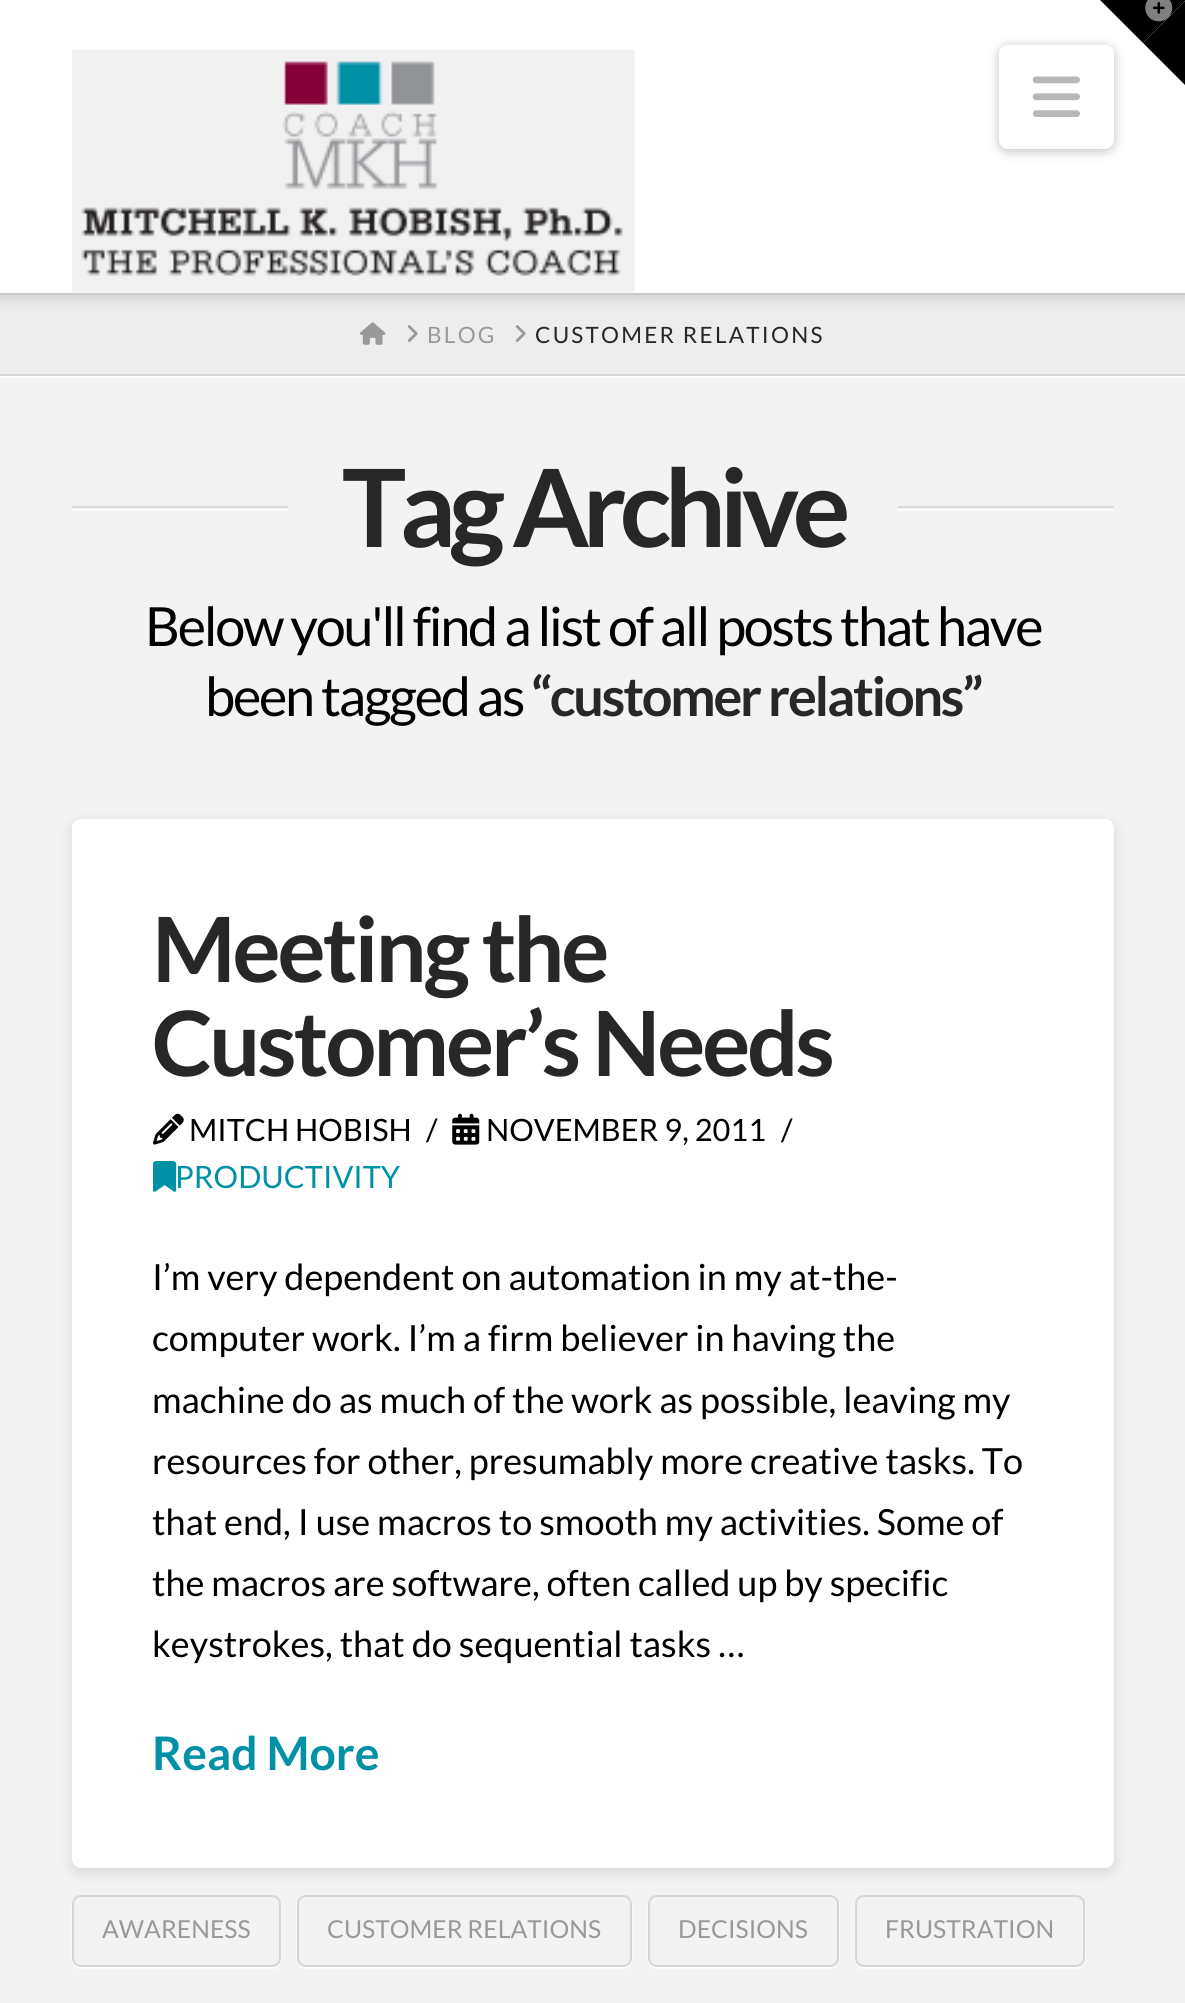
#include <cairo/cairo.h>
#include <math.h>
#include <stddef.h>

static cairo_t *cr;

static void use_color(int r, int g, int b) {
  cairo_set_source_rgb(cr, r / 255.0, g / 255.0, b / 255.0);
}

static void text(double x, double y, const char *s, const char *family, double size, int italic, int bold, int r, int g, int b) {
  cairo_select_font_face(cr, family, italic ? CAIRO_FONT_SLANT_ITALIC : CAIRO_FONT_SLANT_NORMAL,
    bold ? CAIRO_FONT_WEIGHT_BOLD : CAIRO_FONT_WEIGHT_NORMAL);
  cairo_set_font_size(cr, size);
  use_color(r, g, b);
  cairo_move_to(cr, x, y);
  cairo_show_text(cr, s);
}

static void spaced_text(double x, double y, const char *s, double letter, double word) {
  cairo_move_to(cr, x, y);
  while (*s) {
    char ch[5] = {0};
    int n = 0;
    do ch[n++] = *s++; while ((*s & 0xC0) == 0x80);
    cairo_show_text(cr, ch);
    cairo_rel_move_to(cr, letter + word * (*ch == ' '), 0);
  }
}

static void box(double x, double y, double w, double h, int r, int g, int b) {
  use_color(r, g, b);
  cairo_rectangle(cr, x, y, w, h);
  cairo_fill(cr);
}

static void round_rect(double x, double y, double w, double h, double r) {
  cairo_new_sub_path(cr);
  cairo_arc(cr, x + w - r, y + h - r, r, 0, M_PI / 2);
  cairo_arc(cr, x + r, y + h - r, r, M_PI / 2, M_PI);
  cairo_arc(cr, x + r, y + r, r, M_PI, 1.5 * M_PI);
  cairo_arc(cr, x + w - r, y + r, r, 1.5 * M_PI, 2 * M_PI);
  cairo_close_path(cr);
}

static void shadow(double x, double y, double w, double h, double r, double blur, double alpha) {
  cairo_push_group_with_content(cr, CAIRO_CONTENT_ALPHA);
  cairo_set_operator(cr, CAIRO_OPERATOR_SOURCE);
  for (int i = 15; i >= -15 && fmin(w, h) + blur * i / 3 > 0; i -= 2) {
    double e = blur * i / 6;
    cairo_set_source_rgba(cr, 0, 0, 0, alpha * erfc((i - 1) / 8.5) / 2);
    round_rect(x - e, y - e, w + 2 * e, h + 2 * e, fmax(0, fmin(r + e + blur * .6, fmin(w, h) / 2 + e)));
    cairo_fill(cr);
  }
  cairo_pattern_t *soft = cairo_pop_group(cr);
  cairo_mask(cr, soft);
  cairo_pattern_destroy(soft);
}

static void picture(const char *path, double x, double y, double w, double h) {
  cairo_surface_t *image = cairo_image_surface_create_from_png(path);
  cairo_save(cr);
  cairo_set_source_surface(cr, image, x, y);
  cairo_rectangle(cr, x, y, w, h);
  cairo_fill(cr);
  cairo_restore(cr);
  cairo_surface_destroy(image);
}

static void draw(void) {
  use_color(243, 243, 243);
  cairo_paint(cr);
  box(0, 295, 1185, 79, 237, 237, 237);
  use_color(0, 0, 0);
  shadow(0, 5, 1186, 294, 0, 6.5, 0.13);
  box(0, 0, 1185, 293, 255, 255, 255);
  use_color(0, 0, 0);
  shadow(999, 47, 115, 104, 9, 5.5, 0.25);
  use_color(0, 0, 0);
  cairo_new_path(cr);
  cairo_move_to(cr, 1100, 0);
  cairo_line_to(cr, 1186, 0);
  cairo_line_to(cr, 1143, 43);
  cairo_close_path(cr);
  cairo_fill(cr);
  cairo_new_path(cr);
  cairo_move_to(cr, 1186, 0);
  cairo_line_to(cr, 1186, 86);
  cairo_line_to(cr, 1143, 43);
  cairo_close_path(cr);
  cairo_fill(cr);
  picture("img_01.png", 1145, 0, 28, 22);
  box(0, 293, 1185, 2, 204, 204, 204);
  picture("img_02.png", 72, 49, 563, 244);
  use_color(255, 255, 255);
  round_rect(999, 45, 115, 104, 9);
  cairo_fill(cr);
  picture("img_03.png", 1032, 76, 48, 41);
  use_color(252, 252, 252);
  cairo_new_path(cr);
  cairo_move_to(cr, 0, 376);
  cairo_line_to(cr, 0, 378);
  cairo_line_to(cr, 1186, 378);
  cairo_line_to(cr, 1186, 297);
  cairo_line_to(cr, 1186, 376);
  cairo_close_path(cr);
  cairo_fill(cr);
  box(0, 374, 1185, 2, 213, 213, 213);
  picture("img_04.png", 360, 322, 26, 23);
  picture("img_05.png", 407, 325, 11, 17);
  picture("img_05.png", 515, 325, 11, 17);
  box(72, 509, 216, 2, 253, 253, 253);
  box(72, 506, 216, 2, 219, 219, 219);
  box(898, 509, 216, 2, 253, 253, 253);
  box(898, 506, 216, 2, 219, 219, 219);
  use_color(0, 0, 0);
  shadow(72, 824, 1042, 1048, 9, 6.5, 0.13);
  use_color(255, 255, 255);
  round_rect(72, 819, 1042, 1049, 9);
  cairo_fill(cr);
  picture("img_06.png", 153, 1113, 31, 32);
  picture("img_07.png", 452, 1113, 28, 32);
  picture("img_08.png", 153, 1161, 24, 31);
  cairo_save(cr);
  cairo_set_fill_rule(cr, CAIRO_FILL_RULE_EVEN_ODD);
  cairo_new_path(cr);
  cairo_move_to(cr, 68, 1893);
  cairo_line_to(cr, 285, 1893);
  cairo_line_to(cr, 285, 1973);
  cairo_line_to(cr, 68, 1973);
  cairo_close_path(cr);
  cairo_move_to(cr, 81, 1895);
  cairo_line_to(cr, 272, 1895);
  cairo_curve_to(cr, 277, 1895, 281, 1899, 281, 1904);
  cairo_line_to(cr, 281, 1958);
  cairo_curve_to(cr, 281, 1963, 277, 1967, 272, 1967);
  cairo_line_to(cr, 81, 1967);
  cairo_curve_to(cr, 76, 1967, 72, 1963, 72, 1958);
  cairo_line_to(cr, 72, 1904);
  cairo_curve_to(cr, 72, 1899, 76, 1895, 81, 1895);
  cairo_close_path(cr);
  cairo_clip(cr);
  use_color(255, 255, 255);
  shadow(72, 1897, 209, 72, 9, 1, 0.95);
  cairo_restore(cr);
  round_rect(73, 1896, 207, 70, 8);
  cairo_set_source_rgba(cr, 0, 0, 0, 0.12);
  cairo_stroke(cr);
  cairo_save(cr);
  cairo_set_fill_rule(cr, CAIRO_FILL_RULE_EVEN_ODD);
  cairo_new_path(cr);
  cairo_move_to(cr, 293, 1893);
  cairo_line_to(cr, 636, 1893);
  cairo_line_to(cr, 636, 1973);
  cairo_line_to(cr, 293, 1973);
  cairo_close_path(cr);
  cairo_move_to(cr, 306, 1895);
  cairo_line_to(cr, 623, 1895);
  cairo_curve_to(cr, 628, 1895, 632, 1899, 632, 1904);
  cairo_line_to(cr, 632, 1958);
  cairo_curve_to(cr, 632, 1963, 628, 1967, 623, 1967);
  cairo_line_to(cr, 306, 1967);
  cairo_curve_to(cr, 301, 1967, 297, 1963, 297, 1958);
  cairo_line_to(cr, 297, 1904);
  cairo_curve_to(cr, 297, 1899, 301, 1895, 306, 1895);
  cairo_close_path(cr);
  cairo_clip(cr);
  use_color(255, 255, 255);
  shadow(297, 1897, 335, 72, 9, 1, 0.95);
  cairo_restore(cr);
  round_rect(298, 1896, 333, 70, 8);
  cairo_stroke(cr);
  cairo_save(cr);
  cairo_set_fill_rule(cr, CAIRO_FILL_RULE_EVEN_ODD);
  cairo_new_path(cr);
  cairo_move_to(cr, 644, 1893);
  cairo_line_to(cr, 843, 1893);
  cairo_line_to(cr, 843, 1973);
  cairo_line_to(cr, 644, 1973);
  cairo_close_path(cr);
  cairo_move_to(cr, 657, 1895);
  cairo_line_to(cr, 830, 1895);
  cairo_curve_to(cr, 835, 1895, 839, 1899, 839, 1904);
  cairo_line_to(cr, 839, 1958);
  cairo_curve_to(cr, 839, 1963, 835, 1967, 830, 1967);
  cairo_line_to(cr, 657, 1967);
  cairo_curve_to(cr, 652, 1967, 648, 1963, 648, 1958);
  cairo_line_to(cr, 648, 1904);
  cairo_curve_to(cr, 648, 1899, 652, 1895, 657, 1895);
  cairo_close_path(cr);
  cairo_clip(cr);
  use_color(255, 255, 255);
  shadow(648, 1897, 191, 72, 9, 1, 0.95);
  cairo_restore(cr);
  round_rect(649, 1896, 189, 70, 8);
  cairo_stroke(cr);
  cairo_save(cr);
  cairo_set_fill_rule(cr, CAIRO_FILL_RULE_EVEN_ODD);
  cairo_new_path(cr);
  cairo_move_to(cr, 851, 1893);
  cairo_line_to(cr, 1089, 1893);
  cairo_line_to(cr, 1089, 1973);
  cairo_line_to(cr, 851, 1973);
  cairo_close_path(cr);
  cairo_move_to(cr, 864, 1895);
  cairo_line_to(cr, 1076, 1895);
  cairo_curve_to(cr, 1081, 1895, 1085, 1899, 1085, 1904);
  cairo_line_to(cr, 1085, 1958);
  cairo_curve_to(cr, 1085, 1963, 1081, 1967, 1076, 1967);
  cairo_line_to(cr, 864, 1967);
  cairo_curve_to(cr, 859, 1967, 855, 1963, 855, 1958);
  cairo_line_to(cr, 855, 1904);
  cairo_curve_to(cr, 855, 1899, 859, 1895, 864, 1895);
  cairo_close_path(cr);
  cairo_clip(cr);
  use_color(255, 255, 255);
  shadow(855, 1897, 230, 72, 9, 1, 0.95);
  cairo_restore(cr);
  round_rect(856, 1896, 228, 70, 8);
  cairo_stroke(cr);
  cairo_select_font_face(cr, "Lato", CAIRO_FONT_SLANT_NORMAL, CAIRO_FONT_WEIGHT_NORMAL);
  cairo_set_font_size(cr, 22.5);
  use_color(153, 153, 153);
  spaced_text(427, 343, "BLOG", 2.25, 0);
  use_color(39, 39, 39);
  spaced_text(535, 343, "CUSTOMER RELATIONS", 2.25, 0);
  cairo_select_font_face(cr, "Lato", CAIRO_FONT_SLANT_NORMAL, CAIRO_FONT_WEIGHT_BOLD);
  cairo_set_font_size(cr, 108);
  spaced_text(342, 547, "Tag Archive", -6.75, 0);
  cairo_select_font_face(cr, "Lato", CAIRO_FONT_SLANT_NORMAL, CAIRO_FONT_WEIGHT_NORMAL);
  cairo_set_font_size(cr, 54);
  use_color(0, 0, 0);
  spaced_text(145, 646, "Below you'll find a list of all posts that have", -2.25, 0);
  spaced_text(205, 716, "been tagged as", -2.25, 0);
  cairo_select_font_face(cr, "Lato", CAIRO_FONT_SLANT_NORMAL, CAIRO_FONT_WEIGHT_BOLD);
  use_color(39, 39, 39);
  spaced_text(531, 716, "“customer relations”", -2.25, 0);
  cairo_set_font_size(cr, 90);
  spaced_text(152, 982, "Meeting the", -3.1, 0);
  spaced_text(152, 1076, "Customer’s Needs", -3.1, 0);
  text(189, 1141, "MITCH HOBISH", "Lato", 30.75, 0, 0, 0, 0, 0);
  text(426, 1141, "/", "Lato", 30.75, 0, 0, 0, 0, 0);
  text(486, 1141, "NOVEMBER 9, 2011", "Lato", 30.75, 0, 0, 0, 0, 0);
  text(781, 1141, "/", "Lato", 30.75, 0, 0, 0, 0, 0);
  text(175, 1188, "PRODUCTIVITY", "Lato", 30.75, 0, 0, 0, 145, 167);
  text(152, 1290, "I’m very dependent on automation in my at-the-", "Lato", 36, 0, 0, 0, 0, 0);
  text(152, 1351, "computer work. I’m a firm believer in having the", "Lato", 36, 0, 0, 0, 0, 0);
  text(152, 1413, "machine do as much of the work as possible, leaving my", "Lato", 36, 0, 0, 0, 0, 0);
  text(152, 1474, "resources for other, presumably more creative tasks. To", "Lato", 36, 0, 0, 0, 0, 0);
  text(152, 1535, "that end, I use macros to smooth my activities. Some of", "Lato", 36, 0, 0, 0, 0, 0);
  text(152, 1596, "the macros are software, often called up by specific", "Lato", 36, 0, 0, 0, 0, 0);
  text(152, 1657, "keystrokes, that do sequential tasks …", "Lato", 36, 0, 0, 0, 0, 0);
  text(152, 1770, "Read More", "Lato", 46.25, 0, 1, 0, 145, 167);
  text(102, 1938, "AWARENESS", "Lato", 24.75, 0, 0, 153, 153, 153);
  text(327, 1938, "CUSTOMER RELATIONS", "Lato", 24.75, 0, 0, 153, 153, 153);
  text(678, 1938, "DECISIONS", "Lato", 24.75, 0, 0, 153, 153, 153);
  text(885, 1938, "FRUSTRATION", "Lato", 24.75, 0, 0, 153, 153, 153);
}

int main(void) {
  cairo_surface_t *surface = cairo_image_surface_create(CAIRO_FORMAT_RGB24, 1185, 2003);
  cr = cairo_create(surface);
  cairo_font_options_t *options = cairo_font_options_create();
  cairo_font_options_set_hint_metrics(options, CAIRO_HINT_METRICS_OFF);
  cairo_font_options_set_hint_style(options, CAIRO_HINT_STYLE_NONE);
  cairo_set_font_options(cr, options);
  cairo_set_miter_limit(cr, 4);
  draw();
  cairo_surface_write_to_png(surface, "out.png");
  cairo_font_options_destroy(options);
  cairo_destroy(cr);
  cairo_surface_destroy(surface);
  return 0;
}
